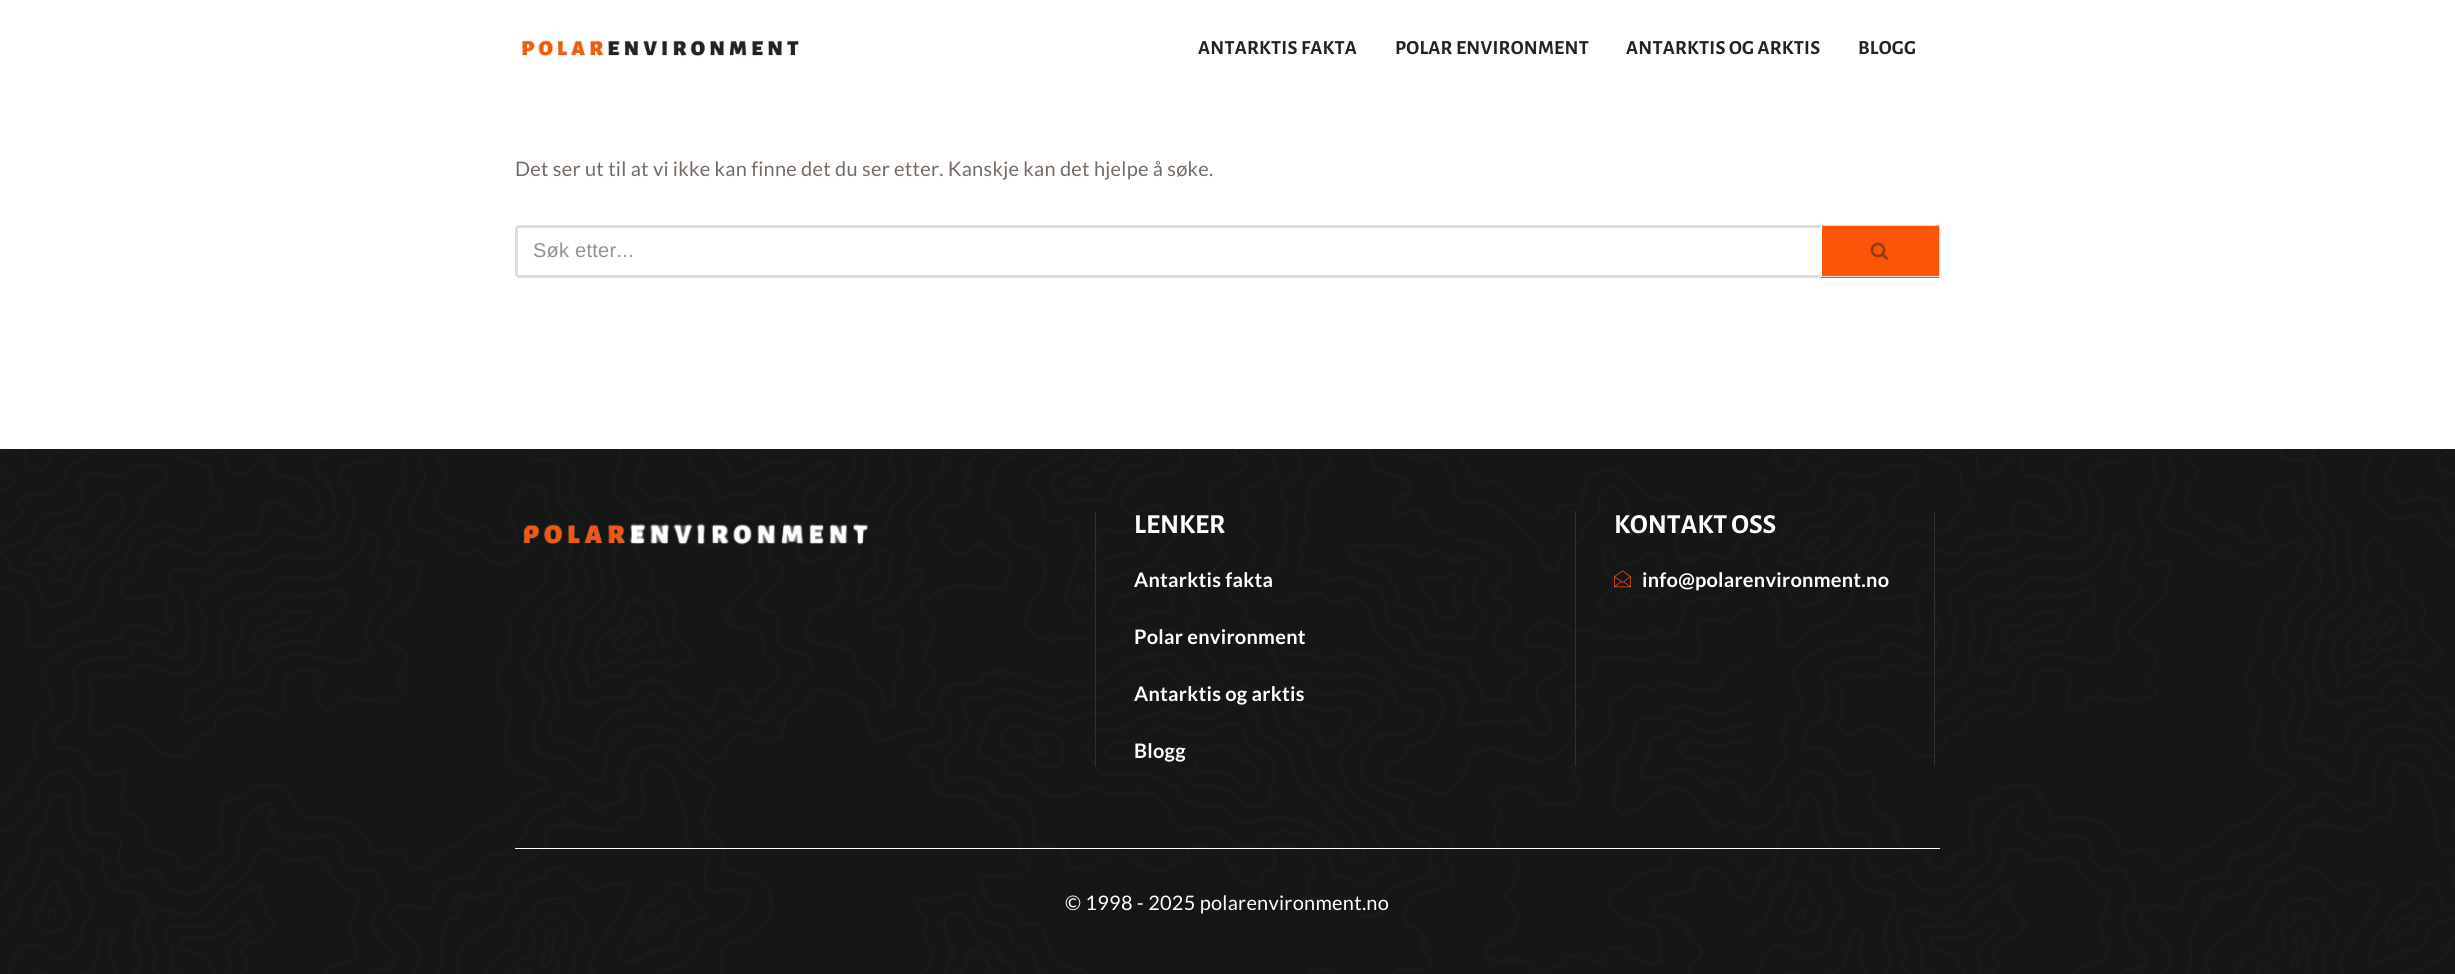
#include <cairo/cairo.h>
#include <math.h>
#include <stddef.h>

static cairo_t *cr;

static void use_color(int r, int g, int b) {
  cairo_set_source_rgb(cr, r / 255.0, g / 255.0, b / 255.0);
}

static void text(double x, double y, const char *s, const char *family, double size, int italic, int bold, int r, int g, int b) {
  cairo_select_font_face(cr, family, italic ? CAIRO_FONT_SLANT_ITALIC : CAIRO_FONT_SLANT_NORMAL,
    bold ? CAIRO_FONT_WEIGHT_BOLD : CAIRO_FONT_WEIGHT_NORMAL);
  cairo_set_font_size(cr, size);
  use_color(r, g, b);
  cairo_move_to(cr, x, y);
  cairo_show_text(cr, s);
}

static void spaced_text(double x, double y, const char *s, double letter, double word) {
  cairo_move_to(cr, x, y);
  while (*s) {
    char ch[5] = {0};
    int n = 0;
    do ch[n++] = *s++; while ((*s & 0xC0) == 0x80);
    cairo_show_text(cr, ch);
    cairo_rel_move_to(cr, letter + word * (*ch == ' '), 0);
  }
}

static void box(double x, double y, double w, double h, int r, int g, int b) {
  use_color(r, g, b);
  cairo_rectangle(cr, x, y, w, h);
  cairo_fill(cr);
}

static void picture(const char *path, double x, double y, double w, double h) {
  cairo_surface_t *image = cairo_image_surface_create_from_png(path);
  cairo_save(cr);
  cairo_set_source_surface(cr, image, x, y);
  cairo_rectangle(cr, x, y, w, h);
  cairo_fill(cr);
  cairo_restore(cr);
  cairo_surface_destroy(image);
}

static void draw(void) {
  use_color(255, 255, 255);
  cairo_paint(cr);
  picture("img_01.png", 520, 39, 279, 20);
  use_color(221, 221, 221);
  cairo_set_fill_rule(cr, CAIRO_FILL_RULE_EVEN_ODD);
  cairo_new_path(cr);
  cairo_move_to(cr, 519, 225);
  cairo_line_to(cr, 1821, 225);
  cairo_line_to(cr, 1821, 278);
  cairo_line_to(cr, 519, 278);
  cairo_curve_to(cr, 517, 278, 515, 276, 515, 274);
  cairo_line_to(cr, 515, 229);
  cairo_curve_to(cr, 515, 227, 517, 225, 519, 225);
  cairo_close_path(cr);
  cairo_move_to(cr, 519, 228);
  cairo_line_to(cr, 1821, 228);
  cairo_line_to(cr, 1821, 275);
  cairo_line_to(cr, 519, 275);
  cairo_curve_to(cr, 518, 275, 518, 274, 518, 274);
  cairo_line_to(cr, 518, 229);
  cairo_curve_to(cr, 518, 228, 518, 228, 519, 228);
  cairo_close_path(cr);
  cairo_fill(cr);
  box(1821, 226, 118, 52, 251, 86, 7);
  box(1821, 225, 119, 1, 221, 221, 221);
  box(1939, 225, 1, 53, 221, 221, 221);
  box(1821, 276, 119, 1, 221, 221, 221);
  box(1821, 226, 1, 50, 255, 255, 255);
  picture("img_02.png", 1870, 242, 18, 18);
  box(0, 449, 2455, 525, 22, 22, 22);
  picture("img_03.png", 0, 448, 2455, 526);
  box(1095, 511, 1, 255, 48, 48, 48);
  picture("img_04.png", 523, 523, 346, 22);
  box(1575, 511, 1, 255, 48, 48, 48);
  box(1934, 511, 1, 255, 48, 48, 48);
  picture("img_05.png", 1614, 570, 17, 18);
  box(515, 848, 1425, 1, 255, 255, 255);
  cairo_select_font_face(cr, "Alegreya Sans SC", CAIRO_FONT_SLANT_NORMAL, CAIRO_FONT_WEIGHT_BOLD);
  cairo_set_font_size(cr, 20);
  use_color(35, 35, 35);
  spaced_text(1198, 54, "ANTARKTIS FAKTA", 0.25, 0);
  spaced_text(1395, 54, "POLAR ENVIRONMENT", 0.25, 0);
  spaced_text(1626, 54, "ANTARKTIS OG ARKTIS", 0.25, 0);
  spaced_text(1858, 54, "BLOGG", 0.25, 0);
  cairo_select_font_face(cr, "Lato", CAIRO_FONT_SLANT_NORMAL, CAIRO_FONT_WEIGHT_NORMAL);
  use_color(117, 107, 101);
  spaced_text(515, 176, "Det ser ut til at vi ikke kan finne det du ser etter. Kanskje kan det hjelpe å søke.", 0.25, 0);
  cairo_select_font_face(cr, "Liberation Sans", CAIRO_FONT_SLANT_NORMAL, CAIRO_FONT_WEIGHT_NORMAL);
  use_color(147, 147, 147);
  spaced_text(533, 257, "Søk etter...", 0.25, 0);
  text(1134, 533, "LENKER", "Alegreya Sans SC", 27.5, 0, 1, 255, 255, 255);
  cairo_select_font_face(cr, "Lato", CAIRO_FONT_SLANT_NORMAL, CAIRO_FONT_WEIGHT_BOLD);
  cairo_set_font_size(cr, 20);
  spaced_text(1134, 587, "Antarktis fakta", 0.25, 0);
  spaced_text(1134, 644, "Polar environment", 0.25, 0);
  spaced_text(1134, 701, "Antarktis og arktis", 0.25, 0);
  spaced_text(1134, 758, "Blogg", 0.25, 0);
  text(1614, 533, "KONTAKT OSS", "Alegreya Sans SC", 27.5, 0, 1, 255, 255, 255);
  cairo_select_font_face(cr, "Lato", CAIRO_FONT_SLANT_NORMAL, CAIRO_FONT_WEIGHT_BOLD);
  cairo_set_font_size(cr, 20);
  spaced_text(1642, 587, "info@polarenvironment.no", 0.25, 0);
  cairo_select_font_face(cr, "Lato", CAIRO_FONT_SLANT_NORMAL, CAIRO_FONT_WEIGHT_NORMAL);
  spaced_text(1065, 910, "© 1998 - 2025 polarenvironment.no", 0.25, 0);
}

int main(void) {
  cairo_surface_t *surface = cairo_image_surface_create(CAIRO_FORMAT_RGB24, 2455, 974);
  cr = cairo_create(surface);
  cairo_font_options_t *options = cairo_font_options_create();
  cairo_font_options_set_hint_metrics(options, CAIRO_HINT_METRICS_OFF);
  cairo_font_options_set_hint_style(options, CAIRO_HINT_STYLE_NONE);
  cairo_set_font_options(cr, options);
  cairo_set_miter_limit(cr, 4);
  draw();
  cairo_surface_write_to_png(surface, "out.png");
  cairo_font_options_destroy(options);
  cairo_destroy(cr);
  cairo_surface_destroy(surface);
  return 0;
}
